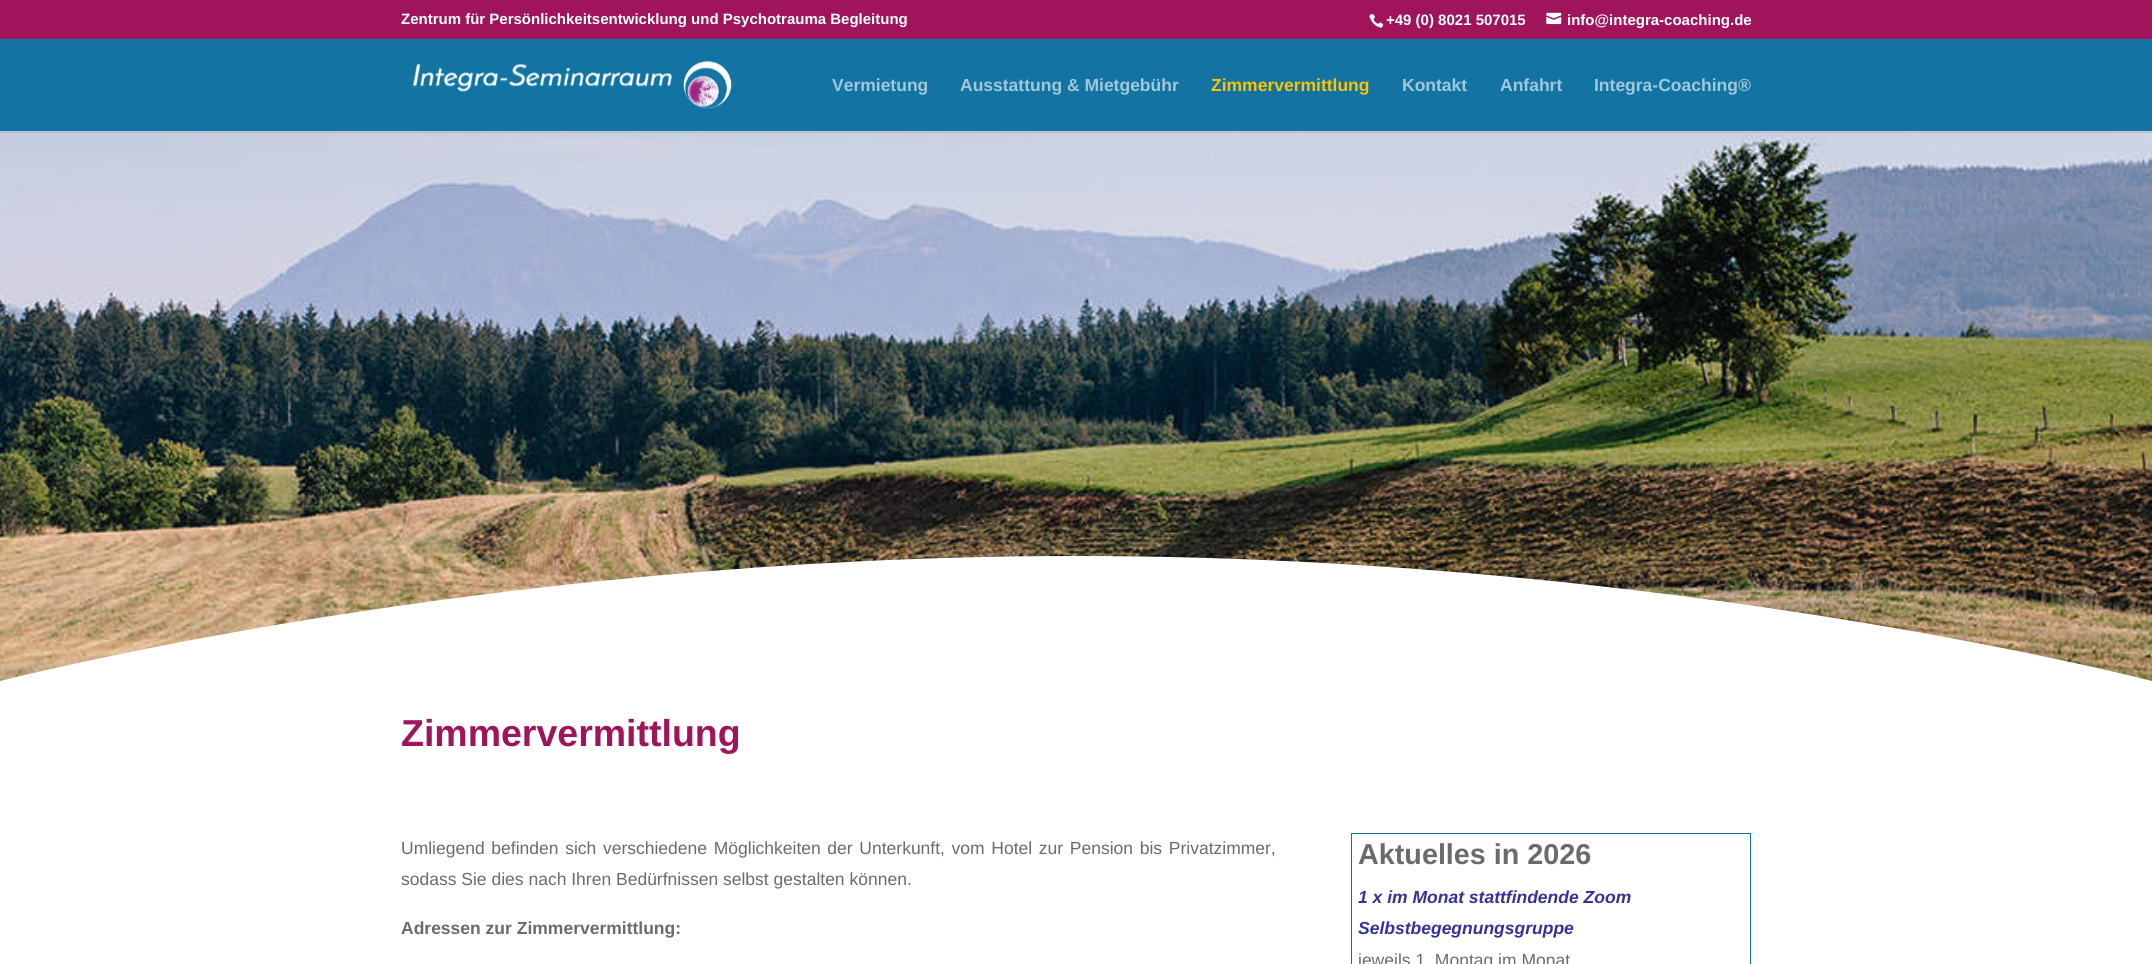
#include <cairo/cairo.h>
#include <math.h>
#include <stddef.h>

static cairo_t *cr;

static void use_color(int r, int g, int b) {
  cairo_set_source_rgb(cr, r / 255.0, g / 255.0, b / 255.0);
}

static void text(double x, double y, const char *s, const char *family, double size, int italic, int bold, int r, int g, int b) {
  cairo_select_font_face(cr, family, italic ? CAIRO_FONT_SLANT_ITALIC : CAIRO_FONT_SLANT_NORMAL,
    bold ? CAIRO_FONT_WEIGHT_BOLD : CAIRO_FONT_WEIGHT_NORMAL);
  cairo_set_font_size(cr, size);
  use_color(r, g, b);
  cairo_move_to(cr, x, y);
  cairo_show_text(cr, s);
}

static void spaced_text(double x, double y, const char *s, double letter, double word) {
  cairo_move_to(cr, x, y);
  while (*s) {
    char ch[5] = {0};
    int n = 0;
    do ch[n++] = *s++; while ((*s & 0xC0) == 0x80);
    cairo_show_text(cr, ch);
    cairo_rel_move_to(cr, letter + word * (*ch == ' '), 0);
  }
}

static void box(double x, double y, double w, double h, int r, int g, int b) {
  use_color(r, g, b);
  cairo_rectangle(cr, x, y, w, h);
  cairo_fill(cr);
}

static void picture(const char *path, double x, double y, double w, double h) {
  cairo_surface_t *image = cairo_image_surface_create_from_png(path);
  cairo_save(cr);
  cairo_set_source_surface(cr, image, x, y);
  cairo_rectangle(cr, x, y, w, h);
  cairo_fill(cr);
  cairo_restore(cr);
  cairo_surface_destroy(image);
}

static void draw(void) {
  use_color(255, 255, 255);
  cairo_paint(cr);
  box(0, 0, 2152, 39, 159, 20, 91);
  picture("img_01.png", 1369, 14, 15, 14);
  picture("img_02.png", 1546, 12, 16, 13);
  picture("img_04.png", 0, 131, 2152, 550);
  cairo_set_source_rgba(cr, 0, 0, 0, 0.1);
  cairo_new_path(cr);
  cairo_move_to(cr, 0, 131);
  cairo_line_to(cr, 0, 133);
  cairo_line_to(cr, 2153, 133);
  cairo_line_to(cr, 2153, 40);
  cairo_line_to(cr, 2152, 40);
  cairo_line_to(cr, 2152, 131);
  cairo_close_path(cr);
  cairo_fill(cr);
  box(0, 39, 2152, 92, 19, 116, 164);
  picture("img_03.png", 413, 60, 319, 49);
  use_color(255, 255, 255);
  cairo_new_path(cr);
  cairo_move_to(cr, 1076, 556);
  cairo_curve_to(cr, 482, 556, 0, 681, 0, 681);
  cairo_line_to(cr, 2152, 681);
  cairo_curve_to(cr, 2152, 681, 1671, 556, 1076, 556);
  cairo_close_path(cr);
  cairo_fill(cr);
  cairo_rectangle(cr, 1351.5, 833.5, 399, 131);
  use_color(19, 116, 164);
  cairo_set_line_width(cr, 1);
  cairo_stroke(cr);
  text(401, 24, "Zentrum für Persönlichkeitsentwicklung und Psychotrauma Begleitung", "Liberation Sans", 15, 0, 1, 255, 255, 255);
  text(1386, 25, "+49 (0) 8021 507015", "Liberation Sans", 15, 0, 1, 255, 255, 255);
  text(1567, 25, "info@integra-coaching.de", "Liberation Sans", 15, 0, 1, 255, 255, 255);
  text(832, 91, "Vermietung", "Liberation Sans", 17.5, 0, 1, 161, 199, 219);
  text(960, 91, "Ausstattung & Mietgebühr", "Liberation Sans", 17.5, 0, 1, 161, 199, 219);
  text(1211, 91, "Zimmervermittlung", "Liberation Sans", 17.5, 0, 1, 253, 195, 0);
  text(1402, 91, "Kontakt", "Liberation Sans", 17.5, 0, 1, 161, 199, 219);
  text(1500, 91, "Anfahrt", "Liberation Sans", 17.5, 0, 1, 161, 199, 219);
  text(1594, 91, "Integra-Coaching®", "Liberation Sans", 17.5, 0, 1, 161, 199, 219);
  text(401, 746, "Zimmervermittlung", "Liberation Sans", 37.5, 0, 1, 159, 20, 91);
  cairo_select_font_face(cr, "Liberation Sans", CAIRO_FONT_SLANT_NORMAL, CAIRO_FONT_WEIGHT_NORMAL);
  cairo_set_font_size(cr, 17.5);
  use_color(107, 107, 107);
  spaced_text(401, 854, "Umliegend befinden sich verschiedene Möglichkeiten der Unterkunft, vom Hotel zur Pension bis Privatzimmer,", 0, 1.8);
  text(401, 885, "sodass Sie dies nach Ihren Bedürfnissen selbst gestalten können.", "Liberation Sans", 17.5, 0, 0, 107, 107, 107);
  text(401, 934, "Adressen zur Zimmervermittlung:", "Liberation Sans", 17.5, 0, 1, 107, 107, 107);
  text(1358, 864, "Aktuelles in 2026", "Liberation Sans", 28.75, 0, 1, 107, 107, 107);
  text(1358, 903, "1 x im Monat stattfindende Zoom", "Liberation Sans", 17.5, 1, 1, 51, 51, 153);
  text(1358, 934, "Selbstbegegnungsgruppe", "Liberation Sans", 17.5, 1, 1, 51, 51, 153);
  text(1358, 966, "jeweils 1. Montag im Monat", "Liberation Sans", 17.5, 0, 0, 107, 107, 107);
}

int main(void) {
  cairo_surface_t *surface = cairo_image_surface_create(CAIRO_FORMAT_RGB24, 2152, 964);
  cr = cairo_create(surface);
  cairo_font_options_t *options = cairo_font_options_create();
  cairo_font_options_set_hint_metrics(options, CAIRO_HINT_METRICS_OFF);
  cairo_font_options_set_hint_style(options, CAIRO_HINT_STYLE_NONE);
  cairo_set_font_options(cr, options);
  cairo_set_miter_limit(cr, 4);
  draw();
  cairo_surface_write_to_png(surface, "out.png");
  cairo_font_options_destroy(options);
  cairo_destroy(cr);
  cairo_surface_destroy(surface);
  return 0;
}
